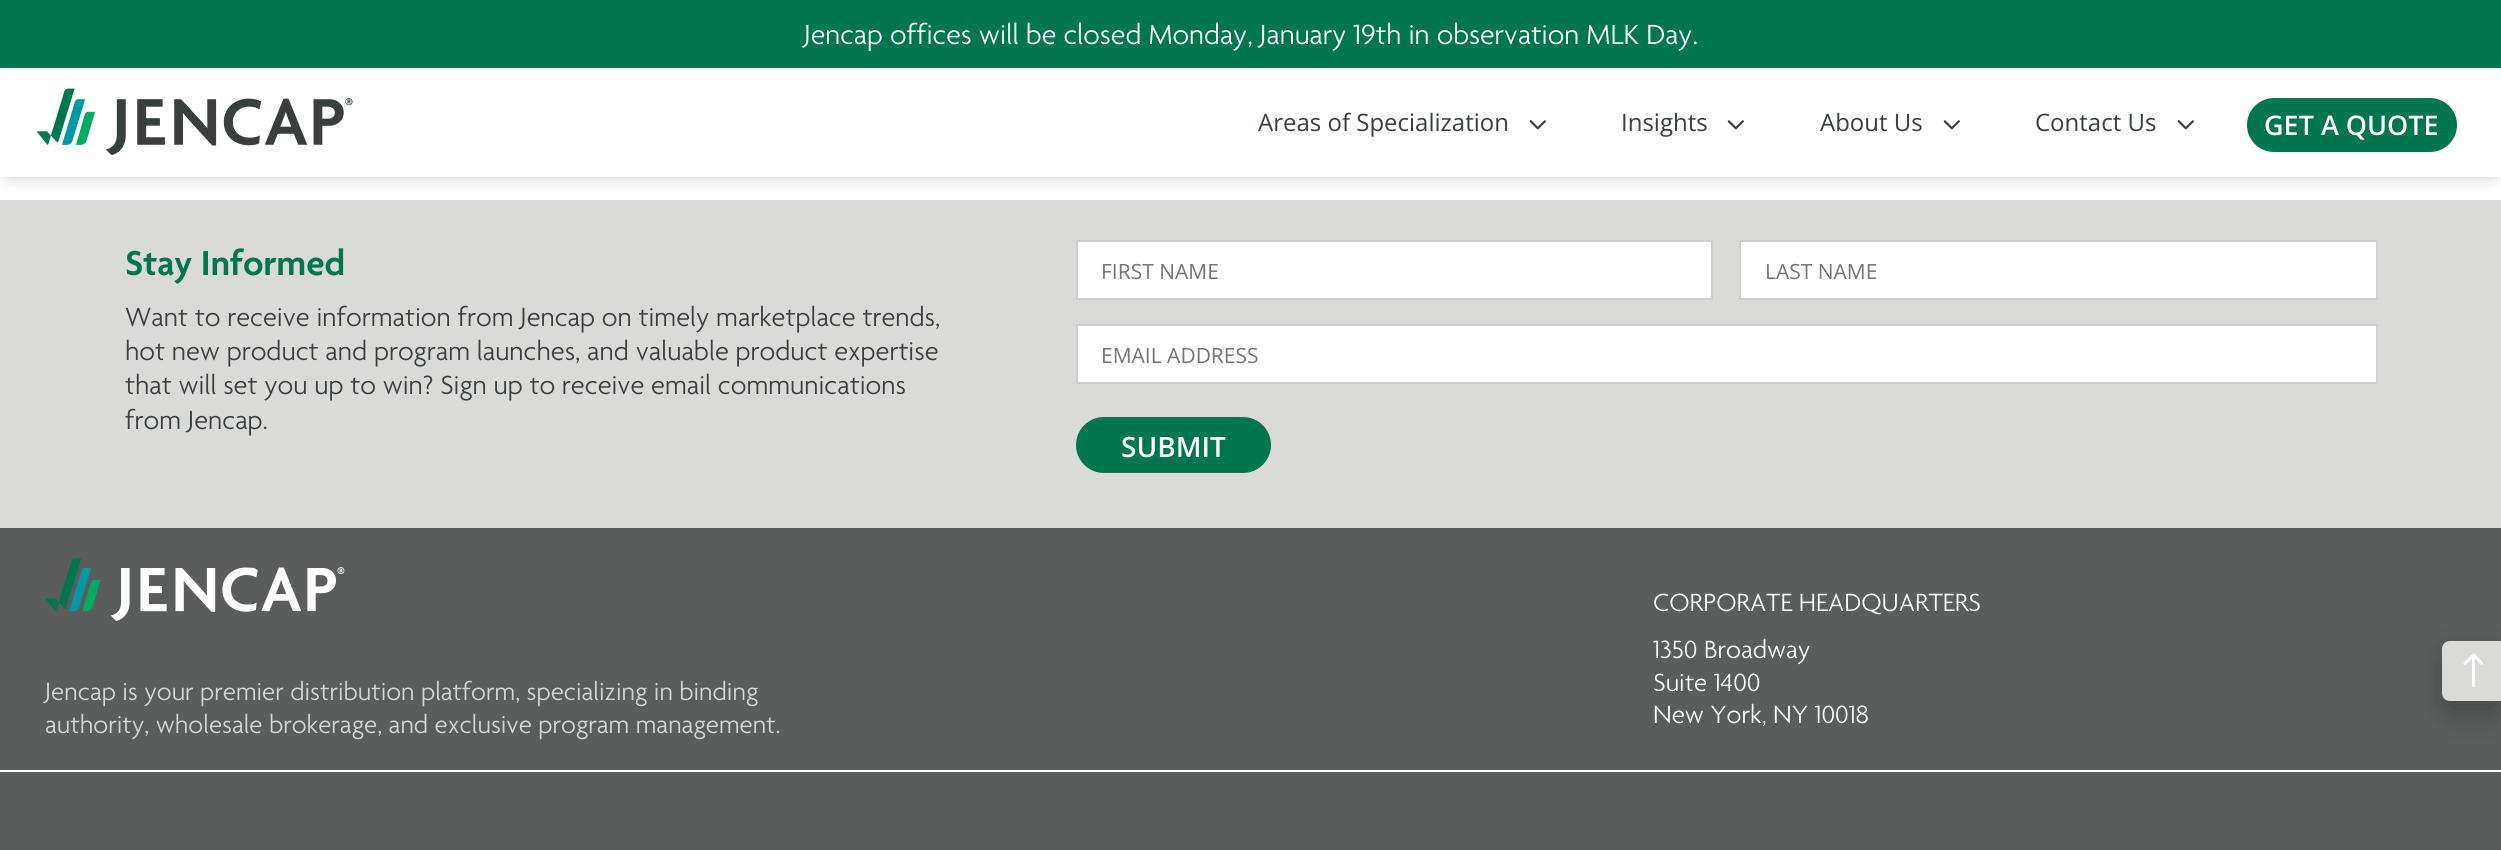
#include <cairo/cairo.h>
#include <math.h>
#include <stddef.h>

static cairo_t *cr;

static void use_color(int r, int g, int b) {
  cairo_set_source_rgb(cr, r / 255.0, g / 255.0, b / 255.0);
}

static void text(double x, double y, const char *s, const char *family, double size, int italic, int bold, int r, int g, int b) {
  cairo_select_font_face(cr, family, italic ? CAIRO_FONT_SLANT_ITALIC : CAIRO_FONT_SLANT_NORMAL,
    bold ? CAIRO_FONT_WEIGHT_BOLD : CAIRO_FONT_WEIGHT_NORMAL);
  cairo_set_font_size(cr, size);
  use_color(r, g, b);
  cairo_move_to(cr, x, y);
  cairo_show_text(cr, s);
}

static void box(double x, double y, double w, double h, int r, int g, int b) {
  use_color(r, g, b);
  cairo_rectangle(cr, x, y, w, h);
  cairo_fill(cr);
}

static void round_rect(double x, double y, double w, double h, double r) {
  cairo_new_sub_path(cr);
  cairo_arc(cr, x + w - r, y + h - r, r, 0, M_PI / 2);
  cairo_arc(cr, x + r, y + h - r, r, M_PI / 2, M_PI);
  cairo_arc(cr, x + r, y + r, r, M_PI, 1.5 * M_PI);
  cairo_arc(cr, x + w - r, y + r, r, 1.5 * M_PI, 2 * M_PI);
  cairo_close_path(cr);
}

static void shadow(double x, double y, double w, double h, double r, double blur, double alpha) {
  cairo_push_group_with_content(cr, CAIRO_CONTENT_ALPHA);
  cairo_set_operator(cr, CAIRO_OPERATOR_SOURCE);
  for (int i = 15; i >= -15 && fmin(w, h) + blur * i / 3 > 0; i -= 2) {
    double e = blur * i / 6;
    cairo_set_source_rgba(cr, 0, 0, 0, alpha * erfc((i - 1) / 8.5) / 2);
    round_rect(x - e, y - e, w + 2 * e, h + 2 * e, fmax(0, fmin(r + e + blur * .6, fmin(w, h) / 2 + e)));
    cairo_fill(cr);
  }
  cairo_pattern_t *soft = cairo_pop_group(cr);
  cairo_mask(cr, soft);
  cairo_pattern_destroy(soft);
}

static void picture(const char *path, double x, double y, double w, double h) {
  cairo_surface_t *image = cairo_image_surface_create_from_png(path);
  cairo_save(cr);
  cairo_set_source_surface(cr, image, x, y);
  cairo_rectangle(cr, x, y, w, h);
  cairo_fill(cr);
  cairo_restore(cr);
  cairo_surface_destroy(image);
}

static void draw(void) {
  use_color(255, 255, 255);
  cairo_paint(cr);
  box(0, 0, 2501, 68, 0, 118, 79);
  box(0, 200, 2501, 328, 218, 218, 217);
  use_color(0, 0, 0);
  shadow(9, 81, 2484, 92, 0, 9, 0.3);
  box(0, 68, 2501, 109, 255, 255, 255);
  picture("img_01.png", 37, 88, 316, 68);
  picture("img_02.png", 1529, 120, 17, 10);
  picture("img_02.png", 1727, 120, 17, 10);
  picture("img_02.png", 1943, 120, 17, 10);
  picture("img_02.png", 2177, 120, 17, 10);
  use_color(0, 118, 79);
  round_rect(2247, 98, 210, 54, 27);
  cairo_fill(cr);
  use_color(255, 255, 255);
  cairo_rectangle(cr, 1077, 241, 635, 58);
  cairo_fill_preserve(cr);
  use_color(206, 206, 206);
  cairo_stroke(cr);
  use_color(255, 255, 255);
  cairo_rectangle(cr, 1740, 241, 637, 58);
  cairo_fill_preserve(cr);
  use_color(206, 206, 206);
  cairo_stroke(cr);
  use_color(255, 255, 255);
  cairo_rectangle(cr, 1077, 325, 1300, 58);
  cairo_fill_preserve(cr);
  use_color(206, 206, 206);
  cairo_stroke(cr);
  use_color(0, 118, 79);
  round_rect(1076, 417, 195, 56, 28);
  cairo_fill(cr);
  box(0, 528, 2501, 322, 90, 93, 92);
  picture("img_03.png", 45, 558, 300, 63);
  box(0, 770, 2501, 2, 255, 255, 255);
  use_color(0, 0, 0);
  shadow(2442, 653, 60, 60, 8, 15, 0.2);
  use_color(218, 218, 217);
  cairo_new_path(cr);
  cairo_move_to(cr, 2450, 641);
  cairo_line_to(cr, 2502, 641);
  cairo_line_to(cr, 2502, 701);
  cairo_line_to(cr, 2450, 701);
  cairo_curve_to(cr, 2445.5, 701, 2442, 697.5, 2442, 693);
  cairo_line_to(cr, 2442, 649);
  cairo_curve_to(cr, 2442, 644.5, 2445.5, 641, 2450, 641);
  cairo_close_path(cr);
  cairo_fill(cr);
  picture("img_04.png", 2463, 653, 21, 35);
  text(804, 44, "Jencap offices will be closed Monday, January 19th in observation MLK Day.", "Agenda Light", 30, 0, 0, 255, 255, 255);
  text(1258, 131, "Areas of Specialization", "Open Sans", 24, 0, 0, 57, 63, 62);
  text(1621, 131, "Insights", "Open Sans", 24, 0, 0, 57, 63, 62);
  text(1820, 131, "About Us", "Open Sans", 24, 0, 0, 57, 63, 62);
  text(2035, 131, "Contact Us", "Open Sans", 24, 0, 0, 57, 63, 62);
  text(2264, 135, "GET A QUOTE", "Open Sans SemiBold", 27, 0, 0, 255, 255, 255);
  text(125, 275, "Stay Informed", "Agenda SemiBold", 37.5, 0, 0, 0, 118, 79);
  text(125, 326, "Want to receive information from Jencap on timely marketplace trends,", "Agenda Light", 28.5, 0, 0, 57, 63, 62);
  text(125, 360, "hot new product and program launches, and valuable product expertise", "Agenda Light", 28.5, 0, 0, 57, 63, 62);
  text(125, 394, "that will set you up to win? Sign up to receive email communications", "Agenda Light", 28.5, 0, 0, 57, 63, 62);
  text(125, 429, "from Jencap.", "Agenda Light", 28.5, 0, 0, 57, 63, 62);
  text(1101, 279, "FIRST NAME", "Open Sans", 21, 0, 0, 117, 117, 117);
  text(1765, 279, "LAST NAME", "Open Sans", 21, 0, 0, 117, 117, 117);
  text(1101, 363, "EMAIL ADDRESS", "Open Sans", 21, 0, 0, 117, 117, 117);
  text(1121, 457, "SUBMIT", "Open Sans SemiBold", 28, 0, 0, 255, 255, 255);
  text(45, 700, "Jencap is your premier distribution platform, specializing in binding", "Agenda Light", 27, 0, 0, 214, 214, 214);
  text(45, 733, "authority, wholesale brokerage, and exclusive program management.", "Agenda Light", 27, 0, 0, 214, 214, 214);
  text(1653, 611, "CORPORATE HEADQUARTERS", "Agenda Light", 27, 0, 0, 255, 255, 255);
  text(1653, 658, "1350 Broadway", "Agenda Light", 27, 0, 0, 255, 255, 255);
  text(1653, 691, "Suite 1400", "Agenda Light", 27, 0, 0, 255, 255, 255);
  text(1653, 723, "New York, NY 10018", "Agenda Light", 27, 0, 0, 255, 255, 255);
}

int main(void) {
  cairo_surface_t *surface = cairo_image_surface_create(CAIRO_FORMAT_RGB24, 2501, 850);
  cr = cairo_create(surface);
  cairo_font_options_t *options = cairo_font_options_create();
  cairo_font_options_set_hint_metrics(options, CAIRO_HINT_METRICS_OFF);
  cairo_font_options_set_hint_style(options, CAIRO_HINT_STYLE_NONE);
  cairo_set_font_options(cr, options);
  cairo_set_miter_limit(cr, 4);
  draw();
  cairo_surface_write_to_png(surface, "out.png");
  cairo_font_options_destroy(options);
  cairo_destroy(cr);
  cairo_surface_destroy(surface);
  return 0;
}
